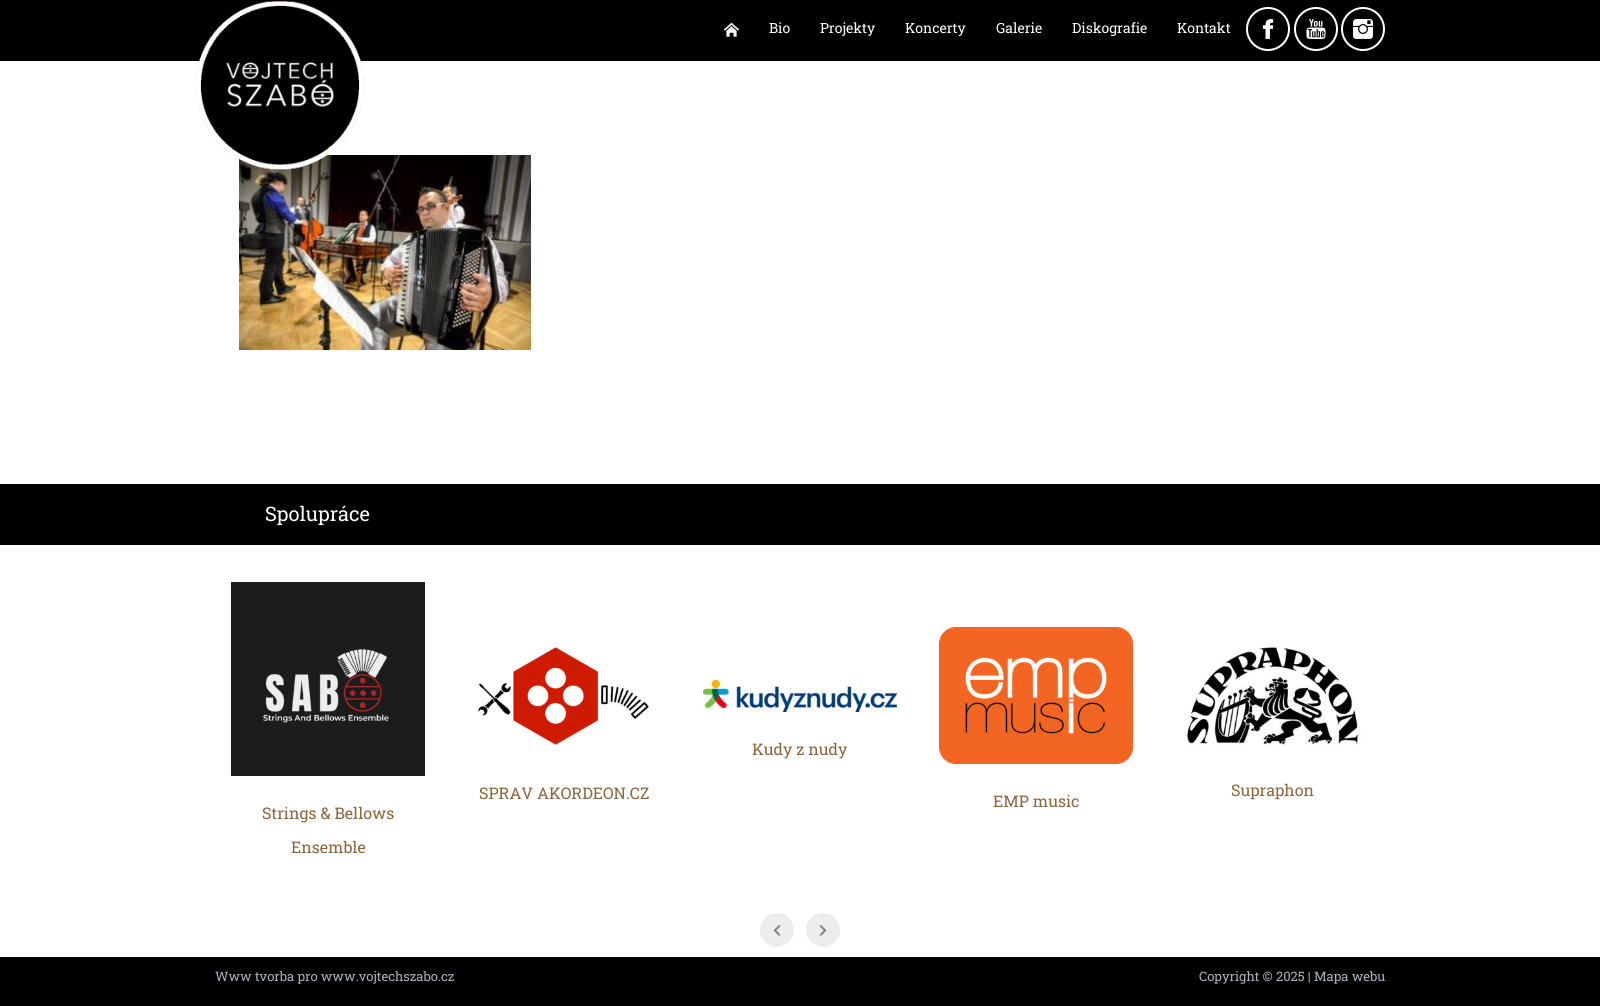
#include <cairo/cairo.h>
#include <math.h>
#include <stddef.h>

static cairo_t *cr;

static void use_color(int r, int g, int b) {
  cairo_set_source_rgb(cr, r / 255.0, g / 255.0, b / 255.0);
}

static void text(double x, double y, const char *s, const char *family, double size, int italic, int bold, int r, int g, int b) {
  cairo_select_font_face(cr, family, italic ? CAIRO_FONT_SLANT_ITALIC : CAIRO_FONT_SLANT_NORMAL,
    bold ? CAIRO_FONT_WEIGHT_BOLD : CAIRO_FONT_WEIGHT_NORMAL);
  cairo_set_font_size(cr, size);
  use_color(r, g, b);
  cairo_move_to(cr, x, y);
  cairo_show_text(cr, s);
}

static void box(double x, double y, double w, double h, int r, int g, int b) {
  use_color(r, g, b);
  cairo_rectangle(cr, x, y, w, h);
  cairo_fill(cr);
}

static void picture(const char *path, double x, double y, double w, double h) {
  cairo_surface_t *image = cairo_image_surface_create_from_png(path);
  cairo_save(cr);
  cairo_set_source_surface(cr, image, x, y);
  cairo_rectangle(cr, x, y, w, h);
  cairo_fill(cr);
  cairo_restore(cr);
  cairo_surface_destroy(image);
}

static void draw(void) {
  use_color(255, 255, 255);
  cairo_paint(cr);
  box(0, 0, 1600, 61, 0, 0, 0);
  picture("img_06.png", 239, 155, 292, 195);
  picture("img_01.png", 196, 0, 169, 170);
  picture("img_02.png", 724, 22, 15, 15);
  cairo_arc(cr, 1268, 29, 21, 0, 2 * M_PI);
  use_color(255, 255, 255);
  cairo_stroke(cr);
  picture("img_03.png", 1262, 19, 12, 20);
  cairo_arc(cr, 1316, 29, 21, 0, 2 * M_PI);
  cairo_stroke(cr);
  picture("img_04.png", 1306, 19, 20, 20);
  cairo_arc(cr, 1363, 29, 21, 0, 2 * M_PI);
  cairo_stroke(cr);
  picture("img_05.png", 1353, 19, 20, 20);
  box(0, 484, 1600, 61, 0, 0, 0);
  picture("img_07.png", 703, 680, 194, 32);
  picture("img_08.png", 478, 647, 171, 98);
  picture("img_09.png", 939, 627, 194, 137);
  picture("img_10.png", 1186, 646, 175, 100);
  picture("img_11.png", 231, 582, 194, 194);
  use_color(236, 237, 237);
  cairo_arc(cr, 777, 930, 17, 0, 2 * M_PI);
  cairo_fill(cr);
  picture("img_12.png", 773, 925, 8, 11);
  cairo_arc(cr, 823, 930, 17, 0, 2 * M_PI);
  cairo_fill(cr);
  picture("img_13.png", 819, 925, 8, 11);
  box(0, 957, 1600, 49, 0, 0, 0);
  text(769, 33, "Bio", "Roboto Slab", 14, 0, 0, 255, 255, 255);
  text(820, 33, "Projekty", "Roboto Slab", 14, 0, 0, 255, 255, 255);
  text(905, 33, "Koncerty", "Roboto Slab", 14, 0, 0, 255, 255, 255);
  text(996, 33, "Galerie", "Roboto Slab", 14, 0, 0, 255, 255, 255);
  text(1072, 33, "Diskografie", "Roboto Slab", 14, 0, 0, 255, 255, 255);
  text(1177, 33, "Kontakt", "Roboto Slab", 14, 0, 0, 255, 255, 255);
  text(265, 521, "Spolupráce", "Roboto Slab", 20, 0, 0, 255, 255, 255);
  text(752, 755, "Kudy z nudy", "Roboto Slab", 16, 0, 0, 141, 99, 58);
  text(479, 799, "SPRAV AKORDEON.CZ", "Roboto Slab", 16, 0, 0, 141, 99, 58);
  text(993, 807, "EMP music", "Roboto Slab", 16, 0, 0, 141, 99, 58);
  text(1231, 796, "Supraphon", "Roboto Slab", 16, 0, 0, 141, 99, 58);
  text(262, 819, "Strings & Bellows", "Roboto Slab", 16, 0, 0, 141, 99, 58);
  text(291, 853, "Ensemble", "Roboto Slab", 16, 0, 0, 141, 99, 58);
  text(215, 981, "Www tvorba pro www.vojtechszabo.cz", "Roboto Slab", 13, 0, 0, 174, 179, 193);
  text(1199, 981, "Copyright © 2025 | Mapa webu", "Roboto Slab", 13, 0, 0, 174, 179, 193);
}

int main(void) {
  cairo_surface_t *surface = cairo_image_surface_create(CAIRO_FORMAT_RGB24, 1600, 1006);
  cr = cairo_create(surface);
  cairo_font_options_t *options = cairo_font_options_create();
  cairo_font_options_set_hint_metrics(options, CAIRO_HINT_METRICS_OFF);
  cairo_font_options_set_hint_style(options, CAIRO_HINT_STYLE_NONE);
  cairo_set_font_options(cr, options);
  cairo_set_miter_limit(cr, 4);
  draw();
  cairo_surface_write_to_png(surface, "out.png");
  cairo_font_options_destroy(options);
  cairo_destroy(cr);
  cairo_surface_destroy(surface);
  return 0;
}
